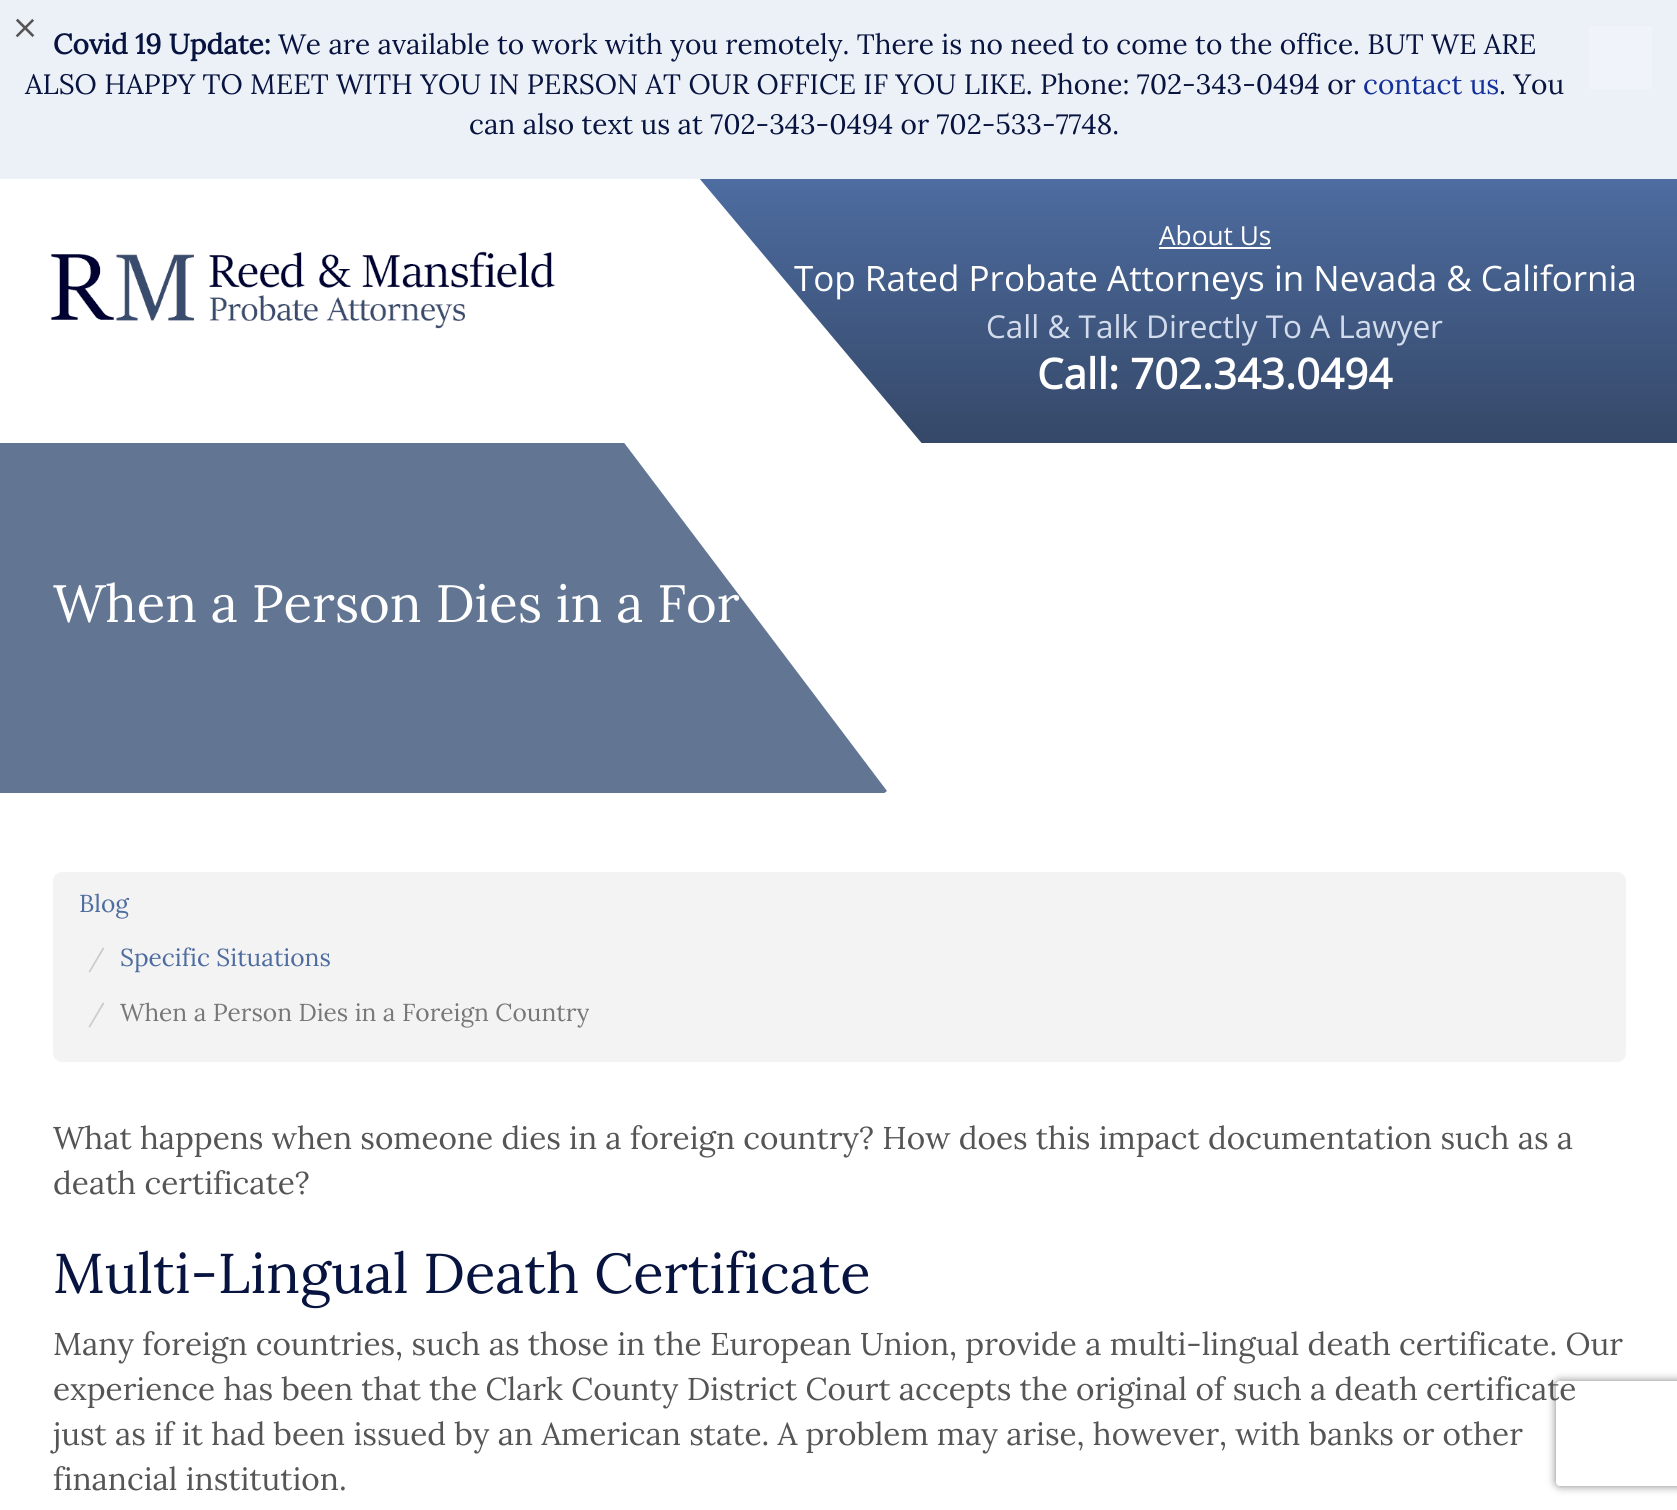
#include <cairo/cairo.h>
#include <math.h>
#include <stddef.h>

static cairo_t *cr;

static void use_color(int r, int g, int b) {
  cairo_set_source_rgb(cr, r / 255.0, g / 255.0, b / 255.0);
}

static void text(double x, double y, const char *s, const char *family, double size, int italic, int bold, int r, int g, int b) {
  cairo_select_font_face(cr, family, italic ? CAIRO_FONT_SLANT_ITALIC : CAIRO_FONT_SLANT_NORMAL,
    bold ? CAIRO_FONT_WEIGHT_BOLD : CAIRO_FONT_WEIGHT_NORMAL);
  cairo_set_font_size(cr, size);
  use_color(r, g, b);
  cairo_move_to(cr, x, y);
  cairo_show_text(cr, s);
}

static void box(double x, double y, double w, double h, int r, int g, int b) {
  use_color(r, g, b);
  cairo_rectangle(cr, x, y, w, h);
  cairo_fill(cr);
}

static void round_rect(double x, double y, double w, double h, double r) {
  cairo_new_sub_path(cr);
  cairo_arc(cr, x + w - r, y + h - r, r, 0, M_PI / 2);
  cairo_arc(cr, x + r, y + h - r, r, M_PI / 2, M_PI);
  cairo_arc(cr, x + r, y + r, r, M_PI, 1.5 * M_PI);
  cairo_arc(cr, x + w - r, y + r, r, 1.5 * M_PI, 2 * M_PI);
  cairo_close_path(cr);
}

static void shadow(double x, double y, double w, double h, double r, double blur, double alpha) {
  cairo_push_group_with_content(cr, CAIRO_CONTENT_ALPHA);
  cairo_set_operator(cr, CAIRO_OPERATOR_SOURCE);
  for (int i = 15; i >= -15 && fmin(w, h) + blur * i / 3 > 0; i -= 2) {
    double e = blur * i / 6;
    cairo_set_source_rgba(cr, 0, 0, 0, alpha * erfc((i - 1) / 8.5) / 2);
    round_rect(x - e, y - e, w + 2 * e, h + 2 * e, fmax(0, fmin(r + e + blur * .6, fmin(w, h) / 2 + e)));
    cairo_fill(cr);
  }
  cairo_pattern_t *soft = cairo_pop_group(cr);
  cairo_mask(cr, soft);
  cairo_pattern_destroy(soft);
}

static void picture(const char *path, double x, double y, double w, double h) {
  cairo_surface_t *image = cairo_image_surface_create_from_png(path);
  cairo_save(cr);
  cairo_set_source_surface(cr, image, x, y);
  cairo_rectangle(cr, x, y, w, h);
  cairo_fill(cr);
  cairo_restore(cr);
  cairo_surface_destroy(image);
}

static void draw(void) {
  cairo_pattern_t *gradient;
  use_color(255, 255, 255);
  cairo_paint(cr);
  box(0, 0, 1677, 179, 236, 240, 247);
  box(1589, 26, 63, 63, 240, 243, 249);
  gradient = cairo_pattern_create_linear(1189, 443, 1189, 179);
  cairo_pattern_add_color_stop_rgba(gradient, 0, 0.208, 0.282, 0.408, 1);
  cairo_pattern_add_color_stop_rgba(gradient, 1, 0.302, 0.424, 0.627, 1);
  cairo_set_source(cr, gradient);
  cairo_pattern_destroy(gradient);
  cairo_rectangle(cr, 700, 179, 977, 264);
  cairo_fill(cr);
  cairo_save(cr);
  cairo_rectangle(cr, 0, 179, 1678, 264);
  cairo_clip(cr);
  use_color(255, 255, 255);
  cairo_new_path(cr);
  cairo_move_to(cr, 699, 178);
  cairo_line_to(cr, 1003, 540);
  cairo_line_to(cr, 641, 843);
  cairo_line_to(cr, 337, 481);
  cairo_close_path(cr);
  cairo_fill(cr);
  cairo_restore(cr);
  picture("img_01.png", 51, 251, 504, 78);
  box(1159, 247, 112, 2, 255, 255, 255);
  cairo_save(cr);
  cairo_rectangle(cr, 0, 443, 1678, 350);
  cairo_clip(cr);
  use_color(98, 117, 147);
  cairo_new_path(cr);
  cairo_move_to(cr, -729, 913);
  cairo_line_to(cr, 360, 93);
  cairo_line_to(cr, 887, 791);
  cairo_line_to(cr, -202, 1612);
  cairo_close_path(cr);
  cairo_fill(cr);
  cairo_restore(cr);
  use_color(243, 243, 243);
  round_rect(53, 872, 1573, 190, 9);
  cairo_fill(cr);
  cairo_save(cr);
  cairo_set_fill_rule(cr, CAIRO_FILL_RULE_EVEN_ODD);
  cairo_new_path(cr);
  cairo_move_to(cr, 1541, 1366);
  cairo_line_to(cr, 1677, 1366);
  cairo_line_to(cr, 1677, 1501);
  cairo_line_to(cr, 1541, 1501);
  cairo_close_path(cr);
  cairo_move_to(cr, 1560, 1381);
  cairo_line_to(cr, 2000, 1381);
  cairo_curve_to(cr, 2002, 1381, 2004, 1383, 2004, 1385);
  cairo_line_to(cr, 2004, 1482);
  cairo_curve_to(cr, 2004, 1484, 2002, 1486, 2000, 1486);
  cairo_line_to(cr, 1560, 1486);
  cairo_curve_to(cr, 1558, 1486, 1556, 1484, 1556, 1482);
  cairo_line_to(cr, 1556, 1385);
  cairo_curve_to(cr, 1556, 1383, 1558, 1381, 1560, 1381);
  cairo_close_path(cr);
  cairo_clip(cr);
  use_color(128, 128, 128);
  shadow(1556, 1381, 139, 105, 4, 4.5, 1);
  cairo_restore(cr);
  text(11, 47, "×", "Lora", 52.5, 0, 0, 85, 85, 85);
  text(53, 54, "Covid 19 Update:", "Lora", 28, 0, 1, 8, 20, 64);
  text(278, 54, "We are available to work with you remotely. There is no need to come to the office. BUT WE ARE", "Lora", 28, 0, 0, 8, 20, 64);
  text(25, 94, "ALSO HAPPY TO MEET WITH YOU IN PERSON AT OUR OFFICE IF YOU LIKE. Phone: 702-343-0494 or", "Lora", 28, 0, 0, 8, 20, 64);
  text(1363, 94, "contact us", "Lora", 28, 0, 0, 19, 48, 155);
  text(1499, 94, ". You", "Lora", 28, 0, 0, 8, 20, 64);
  text(469, 134, "can also text us at 702-343-0494 or 702-533-7748.", "Lora", 28, 0, 0, 8, 20, 64);
  text(1159, 245, "About Us", "Open Sans", 26.25, 0, 0, 255, 255, 255);
  text(794, 291, "Top Rated Probate Attorneys in Nevada & California", "Open Sans", 35, 0, 0, 255, 255, 255);
  text(986, 338, "Call & Talk Directly To A Lawyer", "Open Sans", 31.5, 0, 0, 211, 220, 236);
  text(1037, 389, "Call: 702.343.0494", "Open Sans", 42, 0, 1, 255, 255, 255);
  text(53, 622, "When a Person Dies in a For", "Lora", 52.5, 0, 0, 255, 255, 255);
  text(79, 912, "Blog", "Lora", 24.5, 0, 0, 77, 108, 160);
  text(88, 966, "/", "Lora", 24.5, 0, 0, 204, 204, 204);
  text(120, 966, "Specific Situations", "Lora", 24.5, 0, 0, 77, 108, 160);
  text(88, 1021, "/", "Lora", 24.5, 0, 0, 204, 204, 204);
  text(120, 1021, "When a Person Dies in a Foreign Country", "Lora", 24.5, 0, 0, 119, 119, 119);
  text(53, 1149, "What happens when someone dies in a foreign country? How does this impact documentation such as a", "Lora", 31.5, 0, 0, 85, 85, 85);
  text(53, 1194, "death certificate?", "Lora", 31.5, 0, 0, 85, 85, 85);
  text(53, 1293, "Multi-Lingual Death Certificate", "Lora", 56, 0, 0, 8, 20, 64);
  text(53, 1355, "Many foreign countries, such as those in the European Union, provide a multi-lingual death certificate. Our", "Lora", 31.5, 0, 0, 85, 85, 85);
  text(53, 1400, "experience has been that the Clark County District Court accepts the original of such a death certificate", "Lora", 31.5, 0, 0, 85, 85, 85);
  text(53, 1445, "just as if it had been issued by an American state. A problem may arise, however, with banks or other", "Lora", 31.5, 0, 0, 85, 85, 85);
  text(53, 1490, "financial institution.", "Lora", 31.5, 0, 0, 85, 85, 85);
}

int main(void) {
  cairo_surface_t *surface = cairo_image_surface_create(CAIRO_FORMAT_RGB24, 1677, 1510);
  cr = cairo_create(surface);
  cairo_font_options_t *options = cairo_font_options_create();
  cairo_font_options_set_hint_metrics(options, CAIRO_HINT_METRICS_OFF);
  cairo_font_options_set_hint_style(options, CAIRO_HINT_STYLE_NONE);
  cairo_set_font_options(cr, options);
  cairo_set_miter_limit(cr, 4);
  draw();
  cairo_surface_write_to_png(surface, "out.png");
  cairo_font_options_destroy(options);
  cairo_destroy(cr);
  cairo_surface_destroy(surface);
  return 0;
}
